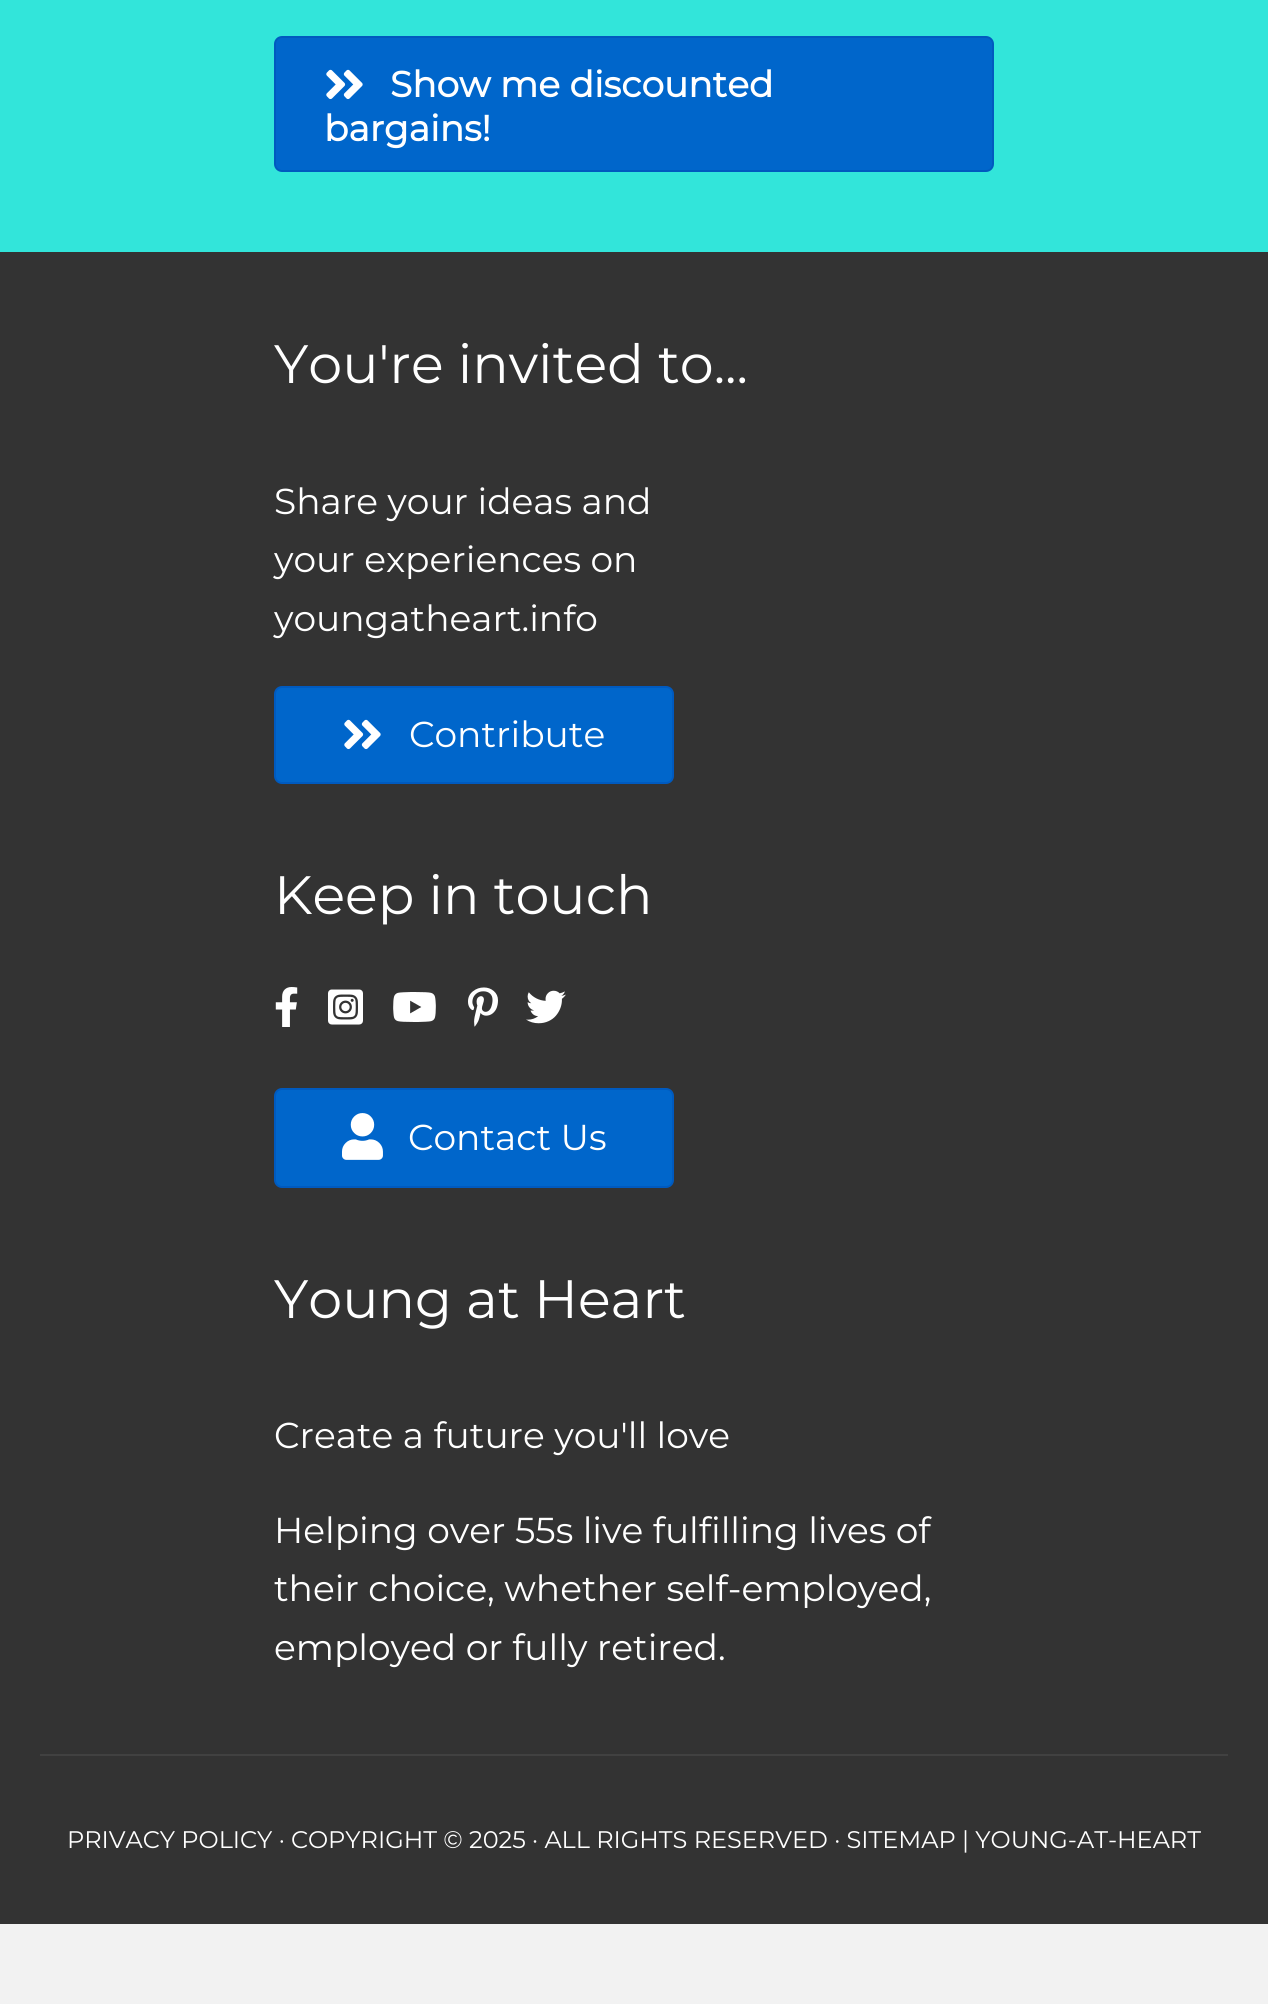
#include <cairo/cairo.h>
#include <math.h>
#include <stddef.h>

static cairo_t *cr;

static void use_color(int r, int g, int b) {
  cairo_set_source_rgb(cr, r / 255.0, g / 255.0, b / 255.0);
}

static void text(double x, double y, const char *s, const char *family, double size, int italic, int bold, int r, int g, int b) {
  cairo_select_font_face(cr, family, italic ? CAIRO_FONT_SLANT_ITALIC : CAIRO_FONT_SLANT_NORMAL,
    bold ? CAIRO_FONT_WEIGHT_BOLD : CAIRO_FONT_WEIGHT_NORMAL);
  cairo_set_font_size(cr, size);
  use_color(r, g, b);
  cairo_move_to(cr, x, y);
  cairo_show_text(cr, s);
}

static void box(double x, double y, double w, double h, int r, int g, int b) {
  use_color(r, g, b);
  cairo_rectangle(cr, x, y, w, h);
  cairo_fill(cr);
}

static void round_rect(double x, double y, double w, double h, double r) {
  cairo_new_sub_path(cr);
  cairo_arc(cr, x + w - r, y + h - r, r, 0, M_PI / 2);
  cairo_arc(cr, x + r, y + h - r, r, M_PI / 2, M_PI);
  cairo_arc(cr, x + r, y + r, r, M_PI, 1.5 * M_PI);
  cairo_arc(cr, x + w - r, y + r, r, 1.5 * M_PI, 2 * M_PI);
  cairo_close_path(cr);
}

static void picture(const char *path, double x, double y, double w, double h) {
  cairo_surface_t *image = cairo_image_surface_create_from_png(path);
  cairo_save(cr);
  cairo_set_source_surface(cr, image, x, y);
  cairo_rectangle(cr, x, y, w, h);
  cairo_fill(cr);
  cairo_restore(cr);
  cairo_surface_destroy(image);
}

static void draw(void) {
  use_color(50, 229, 218);
  cairo_paint(cr);
  use_color(0, 102, 203);
  round_rect(275, 37, 718, 134, 7);
  cairo_fill_preserve(cr);
  use_color(0, 90, 191);
  cairo_stroke(cr);
  picture("img_01.png", 326, 69, 37, 31);
  box(0, 252, 1268, 1672, 51, 51, 51);
  use_color(0, 102, 203);
  round_rect(275, 687, 398, 96, 7);
  cairo_fill_preserve(cr);
  use_color(0, 90, 191);
  cairo_stroke(cr);
  picture("img_01.png", 344, 719, 37, 31);
  picture("img_02.png", 275, 987, 23, 40);
  picture("img_03.png", 328, 989, 35, 36);
  picture("img_04.png", 393, 992, 43, 30);
  picture("img_05.png", 468, 987, 30, 40);
  picture("img_06.png", 526, 990, 40, 34);
  use_color(0, 102, 203);
  round_rect(275, 1089, 398, 98, 7);
  cairo_fill_preserve(cr);
  use_color(0, 90, 191);
  cairo_stroke(cr);
  picture("img_07.png", 342, 1113, 41, 47);
  box(40, 1754, 1188, 2, 65, 65, 65);
  box(0, 1924, 1268, 80, 242, 242, 242);
  text(390, 97, "Show me discounted", "Montserrat", 36, 0, 1, 255, 255, 255);
  text(324, 141, "bargains!", "Montserrat", 36, 0, 1, 255, 255, 255);
  text(274, 383, "You're invited to...", "Montserrat Thin", 54, 0, 0, 255, 255, 255);
  text(274, 514, "Share your ideas and", "Montserrat Thin", 36, 0, 0, 255, 255, 255);
  text(274, 572, "your experiences on", "Montserrat Thin", 36, 0, 0, 255, 255, 255);
  text(274, 631, "youngatheart.info", "Montserrat Thin", 36, 0, 0, 255, 255, 255);
  text(409, 747, "Contribute", "Montserrat Thin", 36, 0, 0, 255, 255, 255);
  text(274, 914, "Keep in touch", "Montserrat Thin", 54, 0, 0, 255, 255, 255);
  text(408, 1150, "Contact Us", "Montserrat Thin", 36, 0, 0, 255, 255, 255);
  text(274, 1318, "Young at Heart", "Montserrat Thin", 54, 0, 0, 255, 255, 255);
  text(274, 1448, "Create a future you'll love", "Montserrat Thin", 36, 0, 0, 255, 255, 255);
  text(274, 1543, "Helping over 55s live fulfilling lives of", "Montserrat Thin", 36, 0, 0, 255, 255, 255);
  text(274, 1601, "their choice, whether self-employed,", "Montserrat Thin", 36, 0, 0, 255, 255, 255);
  text(274, 1660, "employed or fully retired.", "Montserrat Thin", 36, 0, 0, 255, 255, 255);
  text(67, 1848, "PRIVACY POLICY · COPYRIGHT © 2025 · ALL RIGHTS RESERVED · SITEMAP | YOUNG-AT-HEART", "Montserrat Thin", 24, 0, 0, 255, 255, 255);
}

int main(void) {
  cairo_surface_t *surface = cairo_image_surface_create(CAIRO_FORMAT_RGB24, 1268, 2004);
  cr = cairo_create(surface);
  cairo_font_options_t *options = cairo_font_options_create();
  cairo_font_options_set_hint_metrics(options, CAIRO_HINT_METRICS_OFF);
  cairo_font_options_set_hint_style(options, CAIRO_HINT_STYLE_NONE);
  cairo_set_font_options(cr, options);
  cairo_set_miter_limit(cr, 4);
  draw();
  cairo_surface_write_to_png(surface, "out.png");
  cairo_font_options_destroy(options);
  cairo_destroy(cr);
  cairo_surface_destroy(surface);
  return 0;
}
